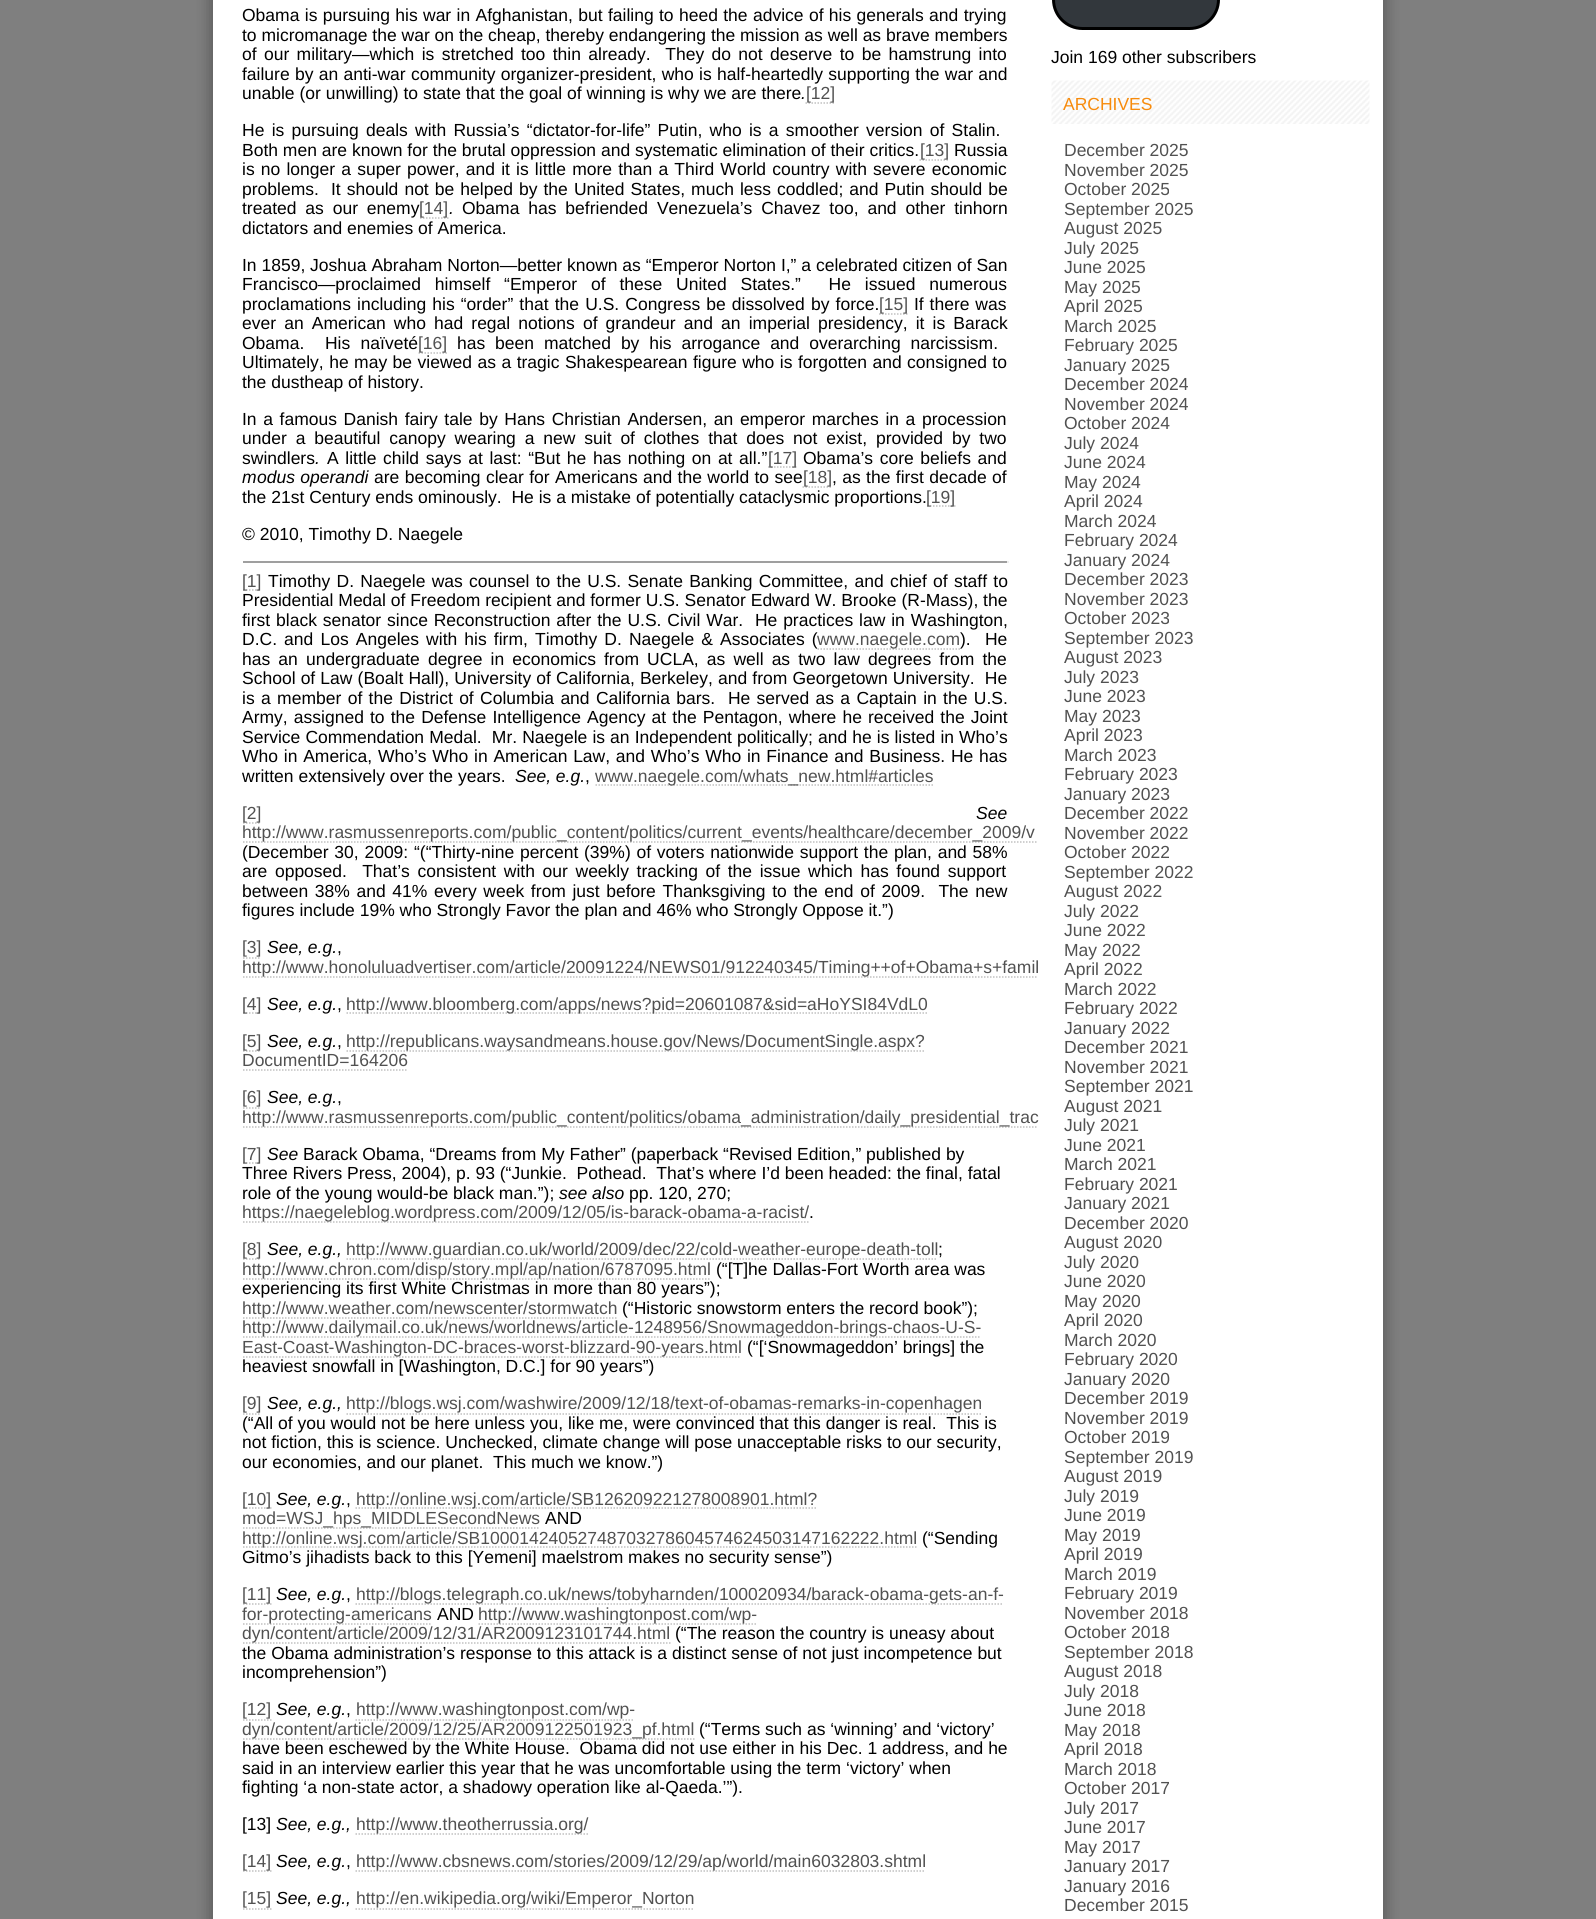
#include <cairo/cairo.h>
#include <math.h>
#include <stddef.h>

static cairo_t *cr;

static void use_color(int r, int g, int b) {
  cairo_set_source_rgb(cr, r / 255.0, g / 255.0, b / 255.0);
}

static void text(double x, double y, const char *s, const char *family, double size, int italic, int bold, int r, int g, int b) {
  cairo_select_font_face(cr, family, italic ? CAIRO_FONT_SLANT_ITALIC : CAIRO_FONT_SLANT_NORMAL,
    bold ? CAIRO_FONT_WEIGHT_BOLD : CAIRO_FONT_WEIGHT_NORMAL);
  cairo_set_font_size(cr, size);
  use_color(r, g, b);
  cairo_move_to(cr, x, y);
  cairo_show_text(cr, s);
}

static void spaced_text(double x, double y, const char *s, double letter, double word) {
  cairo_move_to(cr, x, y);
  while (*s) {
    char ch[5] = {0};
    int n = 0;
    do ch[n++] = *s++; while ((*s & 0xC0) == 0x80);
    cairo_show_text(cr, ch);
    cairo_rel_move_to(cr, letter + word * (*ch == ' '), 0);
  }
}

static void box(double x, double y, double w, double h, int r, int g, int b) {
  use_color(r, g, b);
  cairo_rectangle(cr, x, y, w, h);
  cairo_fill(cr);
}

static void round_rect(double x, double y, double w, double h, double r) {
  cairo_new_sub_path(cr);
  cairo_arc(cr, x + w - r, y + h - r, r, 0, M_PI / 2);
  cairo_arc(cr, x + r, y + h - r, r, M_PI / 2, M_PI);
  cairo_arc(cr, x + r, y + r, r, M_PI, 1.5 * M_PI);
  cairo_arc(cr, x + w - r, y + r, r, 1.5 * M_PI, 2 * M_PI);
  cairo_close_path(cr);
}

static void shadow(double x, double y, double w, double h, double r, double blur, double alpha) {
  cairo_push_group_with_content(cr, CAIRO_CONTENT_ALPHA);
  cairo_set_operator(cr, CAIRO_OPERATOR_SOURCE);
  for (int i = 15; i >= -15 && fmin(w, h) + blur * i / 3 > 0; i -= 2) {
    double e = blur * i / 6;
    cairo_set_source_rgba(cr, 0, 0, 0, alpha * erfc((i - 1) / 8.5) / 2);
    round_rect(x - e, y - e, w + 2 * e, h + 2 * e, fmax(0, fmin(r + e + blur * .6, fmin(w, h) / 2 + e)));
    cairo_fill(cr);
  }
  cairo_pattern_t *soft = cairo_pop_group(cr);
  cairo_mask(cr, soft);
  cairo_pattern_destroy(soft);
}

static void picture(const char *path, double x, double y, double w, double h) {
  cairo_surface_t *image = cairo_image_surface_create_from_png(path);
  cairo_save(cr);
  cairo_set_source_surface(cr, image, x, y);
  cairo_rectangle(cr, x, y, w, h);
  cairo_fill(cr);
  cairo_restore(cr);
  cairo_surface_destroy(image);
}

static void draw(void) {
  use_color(127, 127, 127);
  cairo_paint(cr);
  use_color(90, 90, 90);
  shadow(210, -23, 1176, 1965, 0, 7.5, 1);
  box(213, 0, 1170, 1919, 255, 255, 255);
  cairo_new_path(cr);
  cairo_move_to(cr, 805.5, 103);
  cairo_line_to(cr, 835.5, 103);
  use_color(192, 192, 192);
  cairo_set_line_width(cr, 1.5);
  cairo_set_dash(cr, (double[]){1.5, 1.5}, 2, 0);
  cairo_stroke(cr);
  cairo_new_path(cr);
  cairo_move_to(cr, 919.5, 160);
  cairo_line_to(cr, 949.5, 160);
  cairo_stroke(cr);
  cairo_new_path(cr);
  cairo_move_to(cr, 420, 218);
  cairo_line_to(cr, 448.5, 218);
  cairo_stroke(cr);
  cairo_new_path(cr);
  cairo_move_to(cr, 879, 314);
  cairo_line_to(cr, 907.5, 314);
  cairo_stroke(cr);
  cairo_new_path(cr);
  cairo_move_to(cr, 418.5, 353);
  cairo_line_to(cr, 447, 353);
  cairo_stroke(cr);
  cairo_new_path(cr);
  cairo_move_to(cr, 768, 467);
  cairo_line_to(cr, 796.5, 467);
  cairo_stroke(cr);
  cairo_new_path(cr);
  cairo_move_to(cr, 927, 506);
  cairo_line_to(cr, 955.5, 506);
  cairo_stroke(cr);
  box(243, 561, 765, 2, 159, 159, 159);
  box(1007, 561, 2, 2, 238, 238, 238);
  cairo_new_path(cr);
  cairo_move_to(cr, 243, 590);
  cairo_line_to(cr, 261, 590);
  use_color(192, 192, 192);
  cairo_stroke(cr);
  cairo_new_path(cr);
  cairo_move_to(cr, 595.5, 785);
  cairo_line_to(cr, 933, 785);
  cairo_stroke(cr);
  cairo_new_path(cr);
  cairo_move_to(cr, 243, 823);
  cairo_line_to(cr, 261, 823);
  cairo_stroke(cr);
  cairo_save(cr);
  cairo_rectangle(cr, 213, 0, 825, 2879);
  cairo_clip(cr);
  cairo_new_path(cr);
  cairo_move_to(cr, 243, 842);
  cairo_line_to(cr, 1525.5, 842);
  cairo_stroke(cr);
  cairo_restore(cr);
  cairo_new_path(cr);
  cairo_move_to(cr, 243, 958);
  cairo_line_to(cr, 261, 958);
  cairo_stroke(cr);
  cairo_save(cr);
  cairo_rectangle(cr, 213, 0, 825, 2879);
  cairo_clip(cr);
  cairo_new_path(cr);
  cairo_move_to(cr, 243, 977);
  cairo_line_to(cr, 1315.5, 977);
  cairo_stroke(cr);
  cairo_restore(cr);
  cairo_new_path(cr);
  cairo_move_to(cr, 243, 1013);
  cairo_line_to(cr, 261, 1013);
  cairo_stroke(cr);
  cairo_new_path(cr);
  cairo_move_to(cr, 346.5, 1013);
  cairo_line_to(cr, 927, 1013);
  cairo_stroke(cr);
  cairo_new_path(cr);
  cairo_move_to(cr, 243, 1051);
  cairo_line_to(cr, 261, 1051);
  cairo_stroke(cr);
  cairo_new_path(cr);
  cairo_move_to(cr, 346.5, 1051);
  cairo_line_to(cr, 924, 1051);
  cairo_stroke(cr);
  cairo_new_path(cr);
  cairo_move_to(cr, 243, 1070);
  cairo_line_to(cr, 408, 1070);
  cairo_stroke(cr);
  cairo_new_path(cr);
  cairo_move_to(cr, 243, 1108);
  cairo_line_to(cr, 261, 1108);
  cairo_stroke(cr);
  cairo_save(cr);
  cairo_rectangle(cr, 213, 0, 825, 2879);
  cairo_clip(cr);
  cairo_new_path(cr);
  cairo_move_to(cr, 243, 1127);
  cairo_line_to(cr, 1107, 1127);
  cairo_stroke(cr);
  cairo_restore(cr);
  cairo_new_path(cr);
  cairo_move_to(cr, 243, 1163);
  cairo_line_to(cr, 261, 1163);
  cairo_stroke(cr);
  cairo_new_path(cr);
  cairo_move_to(cr, 243, 1222);
  cairo_line_to(cr, 808.5, 1222);
  cairo_stroke(cr);
  cairo_new_path(cr);
  cairo_move_to(cr, 243, 1259);
  cairo_line_to(cr, 261, 1259);
  cairo_stroke(cr);
  cairo_new_path(cr);
  cairo_move_to(cr, 346.5, 1259);
  cairo_line_to(cr, 937.5, 1259);
  cairo_stroke(cr);
  cairo_new_path(cr);
  cairo_move_to(cr, 243, 1279);
  cairo_line_to(cr, 711, 1279);
  cairo_stroke(cr);
  cairo_new_path(cr);
  cairo_move_to(cr, 243, 1318);
  cairo_line_to(cr, 618, 1318);
  cairo_stroke(cr);
  cairo_new_path(cr);
  cairo_move_to(cr, 243, 1337);
  cairo_line_to(cr, 981, 1337);
  cairo_stroke(cr);
  cairo_new_path(cr);
  cairo_move_to(cr, 243, 1357);
  cairo_line_to(cr, 741, 1357);
  cairo_stroke(cr);
  cairo_new_path(cr);
  cairo_move_to(cr, 243, 1414);
  cairo_line_to(cr, 261, 1414);
  cairo_stroke(cr);
  cairo_new_path(cr);
  cairo_move_to(cr, 346.5, 1414);
  cairo_line_to(cr, 982.5, 1414);
  cairo_stroke(cr);
  cairo_new_path(cr);
  cairo_move_to(cr, 243, 1508);
  cairo_line_to(cr, 271.5, 1508);
  cairo_stroke(cr);
  cairo_new_path(cr);
  cairo_move_to(cr, 355.5, 1508);
  cairo_line_to(cr, 817.5, 1508);
  cairo_stroke(cr);
  cairo_new_path(cr);
  cairo_move_to(cr, 243, 1528);
  cairo_line_to(cr, 540, 1528);
  cairo_stroke(cr);
  cairo_new_path(cr);
  cairo_move_to(cr, 243, 1547);
  cairo_line_to(cr, 916.5, 1547);
  cairo_stroke(cr);
  cairo_new_path(cr);
  cairo_move_to(cr, 243, 1604);
  cairo_line_to(cr, 271.5, 1604);
  cairo_stroke(cr);
  cairo_new_path(cr);
  cairo_move_to(cr, 355.5, 1604);
  cairo_line_to(cr, 1003.5, 1604);
  cairo_stroke(cr);
  cairo_new_path(cr);
  cairo_move_to(cr, 243, 1624);
  cairo_line_to(cr, 432, 1624);
  cairo_stroke(cr);
  cairo_new_path(cr);
  cairo_move_to(cr, 478.5, 1624);
  cairo_line_to(cr, 757.5, 1624);
  cairo_stroke(cr);
  cairo_new_path(cr);
  cairo_move_to(cr, 243, 1643);
  cairo_line_to(cr, 670.5, 1643);
  cairo_stroke(cr);
  cairo_new_path(cr);
  cairo_move_to(cr, 243, 1720);
  cairo_line_to(cr, 271.5, 1720);
  cairo_stroke(cr);
  cairo_new_path(cr);
  cairo_move_to(cr, 355.5, 1720);
  cairo_line_to(cr, 634.5, 1720);
  cairo_stroke(cr);
  cairo_new_path(cr);
  cairo_move_to(cr, 243, 1739);
  cairo_line_to(cr, 694.5, 1739);
  cairo_stroke(cr);
  cairo_new_path(cr);
  cairo_move_to(cr, 355.5, 1834);
  cairo_line_to(cr, 588, 1834);
  cairo_stroke(cr);
  cairo_new_path(cr);
  cairo_move_to(cr, 243, 1871);
  cairo_line_to(cr, 271.5, 1871);
  cairo_stroke(cr);
  cairo_new_path(cr);
  cairo_move_to(cr, 355.5, 1871);
  cairo_line_to(cr, 925.5, 1871);
  cairo_stroke(cr);
  cairo_new_path(cr);
  cairo_move_to(cr, 243, 1909);
  cairo_line_to(cr, 271.5, 1909);
  cairo_stroke(cr);
  cairo_new_path(cr);
  cairo_move_to(cr, 355.5, 1909);
  cairo_line_to(cr, 694.5, 1909);
  cairo_stroke(cr);
  use_color(50, 55, 60);
  round_rect(1053.5, -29.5, 165, 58, 29);
  cairo_fill_preserve(cr);
  use_color(0, 0, 0);
  cairo_set_line_width(cr, 3);
  cairo_set_dash(cr, NULL, 0, 0);
  cairo_stroke(cr);
  picture("img_01.png", 1051, 80, 319, 44);
  cairo_select_font_face(cr, "Liberation Sans", CAIRO_FONT_SLANT_NORMAL, CAIRO_FONT_WEIGHT_NORMAL);
  cairo_set_font_size(cr, 17.5);
  spaced_text(242, 21, "Obama is pursuing his war in Afghanistan, but failing to heed the advice of his generals and trying", 0, 0.5);
  text(242, 41, "to micromanage the war on the cheap, thereby endangering the mission as well as brave members", "Liberation Sans", 17.5, 0, 0, 0, 0, 0);
  spaced_text(242, 60, "of our military—which is stretched too thin already.  They do not deserve to be hamstrung into", 0, 2.5);
  spaced_text(242, 80, "failure by an anti-war community organizer-president, who is half-heartedly supporting the war and", 0, 0.4);
  text(242, 99, "unable (or unwilling) to state that the goal of winning is why we are there", "Liberation Sans", 17.5, 0, 0, 0, 0, 0);
  text(801, 99, ".", "Liberation Sans", 17.5, 1, 0, 0, 0, 0);
  text(806, 99, "[12]", "Liberation Sans", 17.5, 0, 0, 81, 81, 81);
  use_color(0, 0, 0);
  spaced_text(242, 136, "He is pursuing deals with Russia’s “dictator-for-life” Putin, who is a smoother version of Stalin.", 0, 2.4);
  text(242, 156, "Both men are known for the brutal oppression and systematic elimination of their critics.", "Liberation Sans", 17.5, 0, 0, 0, 0, 0);
  text(920, 156, "[13]", "Liberation Sans", 17.5, 0, 0, 81, 81, 81);
  text(954, 156, "Russia", "Liberation Sans", 17.5, 0, 0, 0, 0, 0);
  spaced_text(242, 175, "is no longer a super power, and it is little more than a Third World country with severe economic", 0, 1.3);
  spaced_text(242, 195, "problems.  It should not be helped by the United States, much less coddled; and Putin should be", 0, 1.2);
  spaced_text(242, 214, "treated as our enemy", 0, 4);
  text(419, 214, "[14]", "Liberation Sans", 17.5, 0, 0, 81, 81, 81);
  text(449, 214, ".", "Liberation Sans", 17.5, 1, 0, 0, 0, 0);
  cairo_select_font_face(cr, "Liberation Sans", CAIRO_FONT_SLANT_NORMAL, CAIRO_FONT_WEIGHT_NORMAL);
  spaced_text(462, 214, "Obama has befriended Venezuela’s Chavez too, and other tinhorn", 0, 4);
  text(242, 234, "dictators and enemies of America.", "Liberation Sans", 17.5, 0, 0, 0, 0, 0);
  text(242, 271, "In 1859, Joshua Abraham Norton—better known as “Emperor Norton I,” a celebrated citizen of San", "Liberation Sans", 17.5, 0, 0, 0, 0, 0);
  spaced_text(242, 290, "Francisco—proclaimed himself “Emperor of these United States.”  He issued numerous", 0, 9);
  spaced_text(242, 310, "proclamations including his “order” that the U.S. Congress be dissolved by force.", 0, 1.25);
  text(879, 310, "[15]", "Liberation Sans", 17.5, 0, 0, 81, 81, 81);
  use_color(0, 0, 0);
  spaced_text(914, 310, "If there was", 0, 1);
  spaced_text(242, 329, "ever an American who had regal notions of grandeur and an imperial presidency, it is Barack", 0, 3.25);
  spaced_text(242, 349, "Obama.  His naïveté", 0, 5.5);
  text(418, 349, "[16]", "Liberation Sans", 17.5, 0, 0, 81, 81, 81);
  use_color(0, 0, 0);
  spaced_text(457, 349, "has been matched by his arrogance and overarching narcissism.", 0, 5);
  spaced_text(242, 368, "Ultimately, he may be viewed as a tragic Shakespearean figure who is forgotten and consigned to", 0, 0.6);
  text(242, 388, "the dustheap of history.", "Liberation Sans", 17.5, 0, 0, 0, 0, 0);
  spaced_text(242, 425, "In a famous Danish fairy tale by Hans Christian Andersen, an emperor marches in a procession", 0, 1.75);
  spaced_text(242, 444, "under a beautiful canopy wearing a new suit of clothes that does not exist, provided by two", 0, 4);
  text(242, 464, "swindlers", "Liberation Sans", 17.5, 0, 0, 0, 0, 0);
  text(315, 464, ".", "Liberation Sans", 17.5, 1, 0, 0, 0, 0);
  cairo_select_font_face(cr, "Liberation Sans", CAIRO_FONT_SLANT_NORMAL, CAIRO_FONT_WEIGHT_NORMAL);
  spaced_text(327, 464, "A little child says at last: “But he has nothing on at all.”", 0, 1.75);
  text(768, 464, "[17]", "Liberation Sans", 17.5, 0, 0, 81, 81, 81);
  use_color(0, 0, 0);
  spaced_text(803, 464, "Obama’s core beliefs and", 0, 1.75);
  text(242, 483, "m", "Liberation Sans", 17.5, 1, 0, 0, 0, 0);
  spaced_text(257, 483, "odus operandi", 0, 0.5);
  cairo_select_font_face(cr, "Liberation Sans", CAIRO_FONT_SLANT_NORMAL, CAIRO_FONT_WEIGHT_NORMAL);
  spaced_text(374, 483, "are becoming clear for Americans and the world to see", 0, 0.5);
  cairo_new_path(cr);
  cairo_move_to(cr, 802.5, 487);
  cairo_line_to(cr, 832.5, 487);
  use_color(192, 192, 192);
  cairo_set_line_width(cr, 1.5);
  cairo_set_dash(cr, (double[]){1.5, 1.5}, 2, 0);
  cairo_stroke(cr);
  text(803, 483, "[18]", "Liberation Sans", 17.5, 0, 0, 81, 81, 81);
  use_color(0, 0, 0);
  spaced_text(832, 483, ", as the first decade of", 0, 0.5);
  text(242, 503, "the 21st Century ends ominously.  He is a mistake of potentially cataclysmic proportions.", "Liberation Sans", 17.5, 0, 0, 0, 0, 0);
  text(926, 503, "[19]", "Liberation Sans", 17.5, 0, 0, 81, 81, 81);
  text(242, 540, "© 2010, Timothy D. Naegele", "Liberation Sans", 17.5, 0, 0, 0, 0, 0);
  text(242, 587, "[1]", "Liberation Sans", 17.5, 0, 0, 81, 81, 81);
  use_color(0, 0, 0);
  spaced_text(268, 587, "Timothy D. Naegele was counsel to the U.S. Senate Banking Committee, and chief of staff to", 0, 1.4);
  text(242, 606, "Presidential Medal of Freedom recipient and former U.S. Senator Edward W. Brooke (R-Mass), the", "Liberation Sans", 17.5, 0, 0, 0, 0, 0);
  spaced_text(242, 626, "first black senator since Reconstruction after the U.S. Civil War.  He practices law in Washington,", 0, 1);
  spaced_text(242, 645, "D.C. and Los Angeles with his firm, Timothy D. Naegele & Associates (", 0, 2.25);
  cairo_new_path(cr);
  cairo_move_to(cr, 817.5, 649);
  cairo_line_to(cr, 960, 649);
  use_color(192, 192, 192);
  cairo_stroke(cr);
  text(817, 645, "www.naegele.com", "Liberation Sans", 17.5, 0, 0, 81, 81, 81);
  use_color(0, 0, 0);
  spaced_text(960, 645, ").  He", 0, 2.25);
  spaced_text(242, 665, "has an undergraduate degree in economics from UCLA, as well as two law degrees from the", 0, 3.25);
  spaced_text(242, 684, "School of Law (Boalt Hall), University of California, Berkeley, and from Georgetown University.  He", 0, 0.25);
  spaced_text(242, 704, "is a member of the District of Columbia and California bars.  He served as a Captain in the U.S.", 0, 1.5);
  spaced_text(242, 723, "Army, assigned to the Defense Intelligence Agency at the Pentagon, where he received the Joint", 0, 1.25);
  spaced_text(242, 743, "Service Commendation Medal.  Mr. Naegele is an Independent politically; and he is listed in Who’s", 0, 0.2);
  spaced_text(242, 762, "Who in America, Who’s Who in American Law, and Who’s Who in Finance and Business. He has", 0, 0.9);
  text(242, 782, "written extensively over the years.", "Liberation Sans", 17.5, 0, 0, 0, 0, 0);
  text(515, 782, "See, e.g.", "Liberation Sans", 17.5, 1, 0, 0, 0, 0);
  text(585, 782, ",", "Liberation Sans", 17.5, 0, 0, 0, 0, 0);
  text(595, 782, "www.naegele.com/whats_new.html#articles", "Liberation Sans", 17.5, 0, 0, 81, 81, 81);
  text(242, 819, "[2]", "Liberation Sans", 17.5, 0, 0, 81, 81, 81);
  text(976, 819, "See", "Liberation Sans", 17.5, 1, 0, 0, 0, 0);
  text(242, 838, "http://www.rasmussenreports.com/public_content/politics/current_events/healthcare/december_2009/v", "Liberation Sans", 17.5, 0, 0, 81, 81, 81);
  use_color(0, 0, 0);
  spaced_text(242, 858, "(December 30, 2009: “(“Thirty-nine percent (39%) of voters nationwide support the plan, and 58%", 0, 0.9);
  spaced_text(242, 877, "are opposed.  That’s consistent with our weekly tracking of the issue which has found support", 0, 2.75);
  spaced_text(242, 897, "between 38% and 41% every week from just before Thanksgiving to the end of 2009.  The new", 0, 1.75);
  text(242, 916, "figures include 19% who Strongly Favor the plan and 46% who Strongly Oppose it.”)", "Liberation Sans", 17.5, 0, 0, 0, 0, 0);
  text(242, 953, "[3]", "Liberation Sans", 17.5, 0, 0, 81, 81, 81);
  text(267, 953, "See, e.g.", "Liberation Sans", 17.5, 1, 0, 0, 0, 0);
  text(337, 953, ",", "Liberation Sans", 17.5, 0, 0, 0, 0, 0);
  cairo_save(cr);
  cairo_rectangle(cr, 213, 0, 825, 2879);
  cairo_clip(cr);
  text(242, 973, "http://www.honoluluadvertiser.com/article/20091224/NEWS01/912240345/Timing++of+Obama+s+famil", "Liberation Sans", 17.5, 0, 0, 81, 81, 81);
  cairo_restore(cr);
  text(242, 1010, "[4]", "Liberation Sans", 17.5, 0, 0, 81, 81, 81);
  text(267, 1010, "See, e.g.", "Liberation Sans", 17.5, 1, 0, 0, 0, 0);
  text(337, 1010, ",", "Liberation Sans", 17.5, 0, 0, 0, 0, 0);
  text(346, 1010, "http://www.bloomberg.com/apps/news?pid=20601087&sid=aHoYSI84VdL0", "Liberation Sans", 17.5, 0, 0, 81, 81, 81);
  text(242, 1047, "[5]", "Liberation Sans", 17.5, 0, 0, 81, 81, 81);
  text(267, 1047, "See, e.g.", "Liberation Sans", 17.5, 1, 0, 0, 0, 0);
  text(337, 1047, ",", "Liberation Sans", 17.5, 0, 0, 0, 0, 0);
  text(346, 1047, "http://republicans.waysandmeans.house.gov/News/DocumentSingle.aspx?", "Liberation Sans", 17.5, 0, 0, 81, 81, 81);
  text(242, 1066, "DocumentID=164206", "Liberation Sans", 17.5, 0, 0, 81, 81, 81);
  text(242, 1103, "[6]", "Liberation Sans", 17.5, 0, 0, 81, 81, 81);
  text(267, 1103, "See, e.g.", "Liberation Sans", 17.5, 1, 0, 0, 0, 0);
  text(337, 1103, ",", "Liberation Sans", 17.5, 0, 0, 0, 0, 0);
  text(242, 1123, "http://www.rasmussenreports.com/public_content/politics/obama_administration/daily_presidential_trac", "Liberation Sans", 17.5, 0, 0, 81, 81, 81);
  text(242, 1160, "[7]", "Liberation Sans", 17.5, 0, 0, 81, 81, 81);
  text(267, 1160, "See", "Liberation Sans", 17.5, 1, 0, 0, 0, 0);
  text(303, 1160, "Barack Obama, “Dreams from My Father” (paperback “Revised Edition,” published by", "Liberation Sans", 17.5, 0, 0, 0, 0, 0);
  text(242, 1179, "Three Rivers Press, 2004), p. 93 (“Junkie.  Pothead.  That’s where I’d been headed: the final, fatal", "Liberation Sans", 17.5, 0, 0, 0, 0, 0);
  text(242, 1199, "role of the young would-be black man.”);", "Liberation Sans", 17.5, 0, 0, 0, 0, 0);
  text(559, 1199, "see also", "Liberation Sans", 17.5, 1, 0, 0, 0, 0);
  text(629, 1199, "pp. 120, 270;", "Liberation Sans", 17.5, 0, 0, 0, 0, 0);
  text(242, 1218, "https://naegeleblog.wordpress.com/2009/12/05/is-barack-obama-a-racist/", "Liberation Sans", 17.5, 0, 0, 81, 81, 81);
  text(809, 1218, ".", "Liberation Sans", 17.5, 0, 0, 0, 0, 0);
  text(242, 1255, "[8]", "Liberation Sans", 17.5, 0, 0, 81, 81, 81);
  text(267, 1255, "See, e.g.,", "Liberation Sans", 17.5, 1, 0, 0, 0, 0);
  text(346, 1255, "http://www.guardian.co.uk/world/2009/dec/22/cold-weather-europe-death-toll", "Liberation Sans", 17.5, 0, 0, 81, 81, 81);
  text(938, 1255, ";", "Liberation Sans", 17.5, 0, 0, 0, 0, 0);
  text(242, 1275, "http://www.chron.com/disp/story.mpl/ap/nation/6787095.html", "Liberation Sans", 17.5, 0, 0, 81, 81, 81);
  text(716, 1275, "(“[T]he Dallas-Fort Worth area was", "Liberation Sans", 17.5, 0, 0, 0, 0, 0);
  text(242, 1294, "experiencing its first White Christmas in more than 80 years”);", "Liberation Sans", 17.5, 0, 0, 0, 0, 0);
  text(242, 1314, "http://www.weather.com/newscenter/stormwatch", "Liberation Sans", 17.5, 0, 0, 81, 81, 81);
  text(622, 1314, "(“Historic snowstorm enters the record book”);", "Liberation Sans", 17.5, 0, 0, 0, 0, 0);
  text(242, 1333, "http://www.dailymail.co.uk/news/worldnews/article-1248956/Snowmageddon-brings-chaos-U-S-", "Liberation Sans", 17.5, 0, 0, 81, 81, 81);
  text(242, 1353, "East-Coast-Washington-DC-braces-worst-blizzard-90-years.html", "Liberation Sans", 17.5, 0, 0, 81, 81, 81);
  text(747, 1353, "(“[‘Snowmageddon’ brings] the", "Liberation Sans", 17.5, 0, 0, 0, 0, 0);
  text(242, 1372, "heaviest snowfall in [Washington, D.C.] for 90 years”)", "Liberation Sans", 17.5, 0, 0, 0, 0, 0);
  text(242, 1409, "[9]", "Liberation Sans", 17.5, 0, 0, 81, 81, 81);
  text(267, 1409, "See, e.g.,", "Liberation Sans", 17.5, 1, 0, 0, 0, 0);
  text(346, 1409, "http://blogs.wsj.com/washwire/2009/12/18/text-of-obamas-remarks-in-copenhagen", "Liberation Sans", 17.5, 0, 0, 81, 81, 81);
  text(242, 1429, "(“All of you would not be here unless you, like me, were convinced that this danger is real.  This is", "Liberation Sans", 17.5, 0, 0, 0, 0, 0);
  text(242, 1448, "not fiction, this is science. Unchecked, climate change will pose unacceptable risks to our security,", "Liberation Sans", 17.5, 0, 0, 0, 0, 0);
  text(242, 1468, "our economies, and our planet.  This much we know.”)", "Liberation Sans", 17.5, 0, 0, 0, 0, 0);
  text(242, 1505, "[10]", "Liberation Sans", 17.5, 0, 0, 81, 81, 81);
  text(276, 1505, "See, e.g.", "Liberation Sans", 17.5, 1, 0, 0, 0, 0);
  text(346, 1505, ",", "Liberation Sans", 17.5, 0, 0, 0, 0, 0);
  text(356, 1505, "http://online.wsj.com/article/SB126209221278008901.html?", "Liberation Sans", 17.5, 0, 0, 81, 81, 81);
  text(242, 1524, "mod=WSJ_hps_MIDDLESecondNews", "Liberation Sans", 17.5, 0, 0, 81, 81, 81);
  text(545, 1524, "AND", "Liberation Sans", 17.5, 0, 0, 0, 0, 0);
  text(242, 1544, "http://online.wsj.com/article/SB10001424052748703278604574624503147162222.html", "Liberation Sans", 17.5, 0, 0, 81, 81, 81);
  text(922, 1544, "(“Sending", "Liberation Sans", 17.5, 0, 0, 0, 0, 0);
  text(242, 1563, "Gitmo’s jihadists back to this [Yemeni] maelstrom makes no security sense”)", "Liberation Sans", 17.5, 0, 0, 0, 0, 0);
  text(242, 1600, "[11]", "Liberation Sans", 17.5, 0, 0, 81, 81, 81);
  text(276, 1600, "See, e.g.", "Liberation Sans", 17.5, 1, 0, 0, 0, 0);
  text(346, 1600, ",", "Liberation Sans", 17.5, 0, 0, 0, 0, 0);
  text(356, 1600, "http://blogs.telegraph.co.uk/news/tobyharnden/100020934/barack-obama-gets-an-f-", "Liberation Sans", 17.5, 0, 0, 81, 81, 81);
  text(242, 1620, "for-protecting-americans", "Liberation Sans", 17.5, 0, 0, 81, 81, 81);
  text(437, 1620, "AND", "Liberation Sans", 17.5, 0, 0, 0, 0, 0);
  text(478, 1620, "http://www.washingtonpost.com/wp-", "Liberation Sans", 17.5, 0, 0, 81, 81, 81);
  text(242, 1639, "dyn/content/article/2009/12/31/AR2009123101744.html", "Liberation Sans", 17.5, 0, 0, 81, 81, 81);
  text(675, 1639, "(“The reason the country is uneasy about", "Liberation Sans", 17.5, 0, 0, 0, 0, 0);
  text(242, 1659, "the Obama administration’s response to this attack is a distinct sense of not just incompetence but", "Liberation Sans", 17.5, 0, 0, 0, 0, 0);
  text(242, 1678, "incomprehension”)", "Liberation Sans", 17.5, 0, 0, 0, 0, 0);
  text(242, 1715, "[12]", "Liberation Sans", 17.5, 0, 0, 81, 81, 81);
  text(276, 1715, "See, e.g.", "Liberation Sans", 17.5, 1, 0, 0, 0, 0);
  text(346, 1715, ",", "Liberation Sans", 17.5, 0, 0, 0, 0, 0);
  text(356, 1715, "http://www.washingtonpost.com/wp-", "Liberation Sans", 17.5, 0, 0, 81, 81, 81);
  text(242, 1735, "dyn/content/article/2009/12/25/AR2009122501923_pf.html", "Liberation Sans", 17.5, 0, 0, 81, 81, 81);
  text(699, 1735, "(“Terms such as ‘winning’ and ‘victory’", "Liberation Sans", 17.5, 0, 0, 0, 0, 0);
  text(242, 1754, "have been eschewed by the White House.  Obama did not use either in his Dec. 1 address, and he", "Liberation Sans", 17.5, 0, 0, 0, 0, 0);
  text(242, 1774, "said in an interview earlier this year that he was uncomfortable using the term ‘victory’ when", "Liberation Sans", 17.5, 0, 0, 0, 0, 0);
  text(242, 1793, "fighting ‘a non-state actor, a shadowy operation like al-Qaeda.’”).", "Liberation Sans", 17.5, 0, 0, 0, 0, 0);
  text(242, 1830, "[13]", "Liberation Sans", 17.5, 0, 0, 0, 0, 0);
  text(276, 1830, "See, e.g.,", "Liberation Sans", 17.5, 1, 0, 0, 0, 0);
  text(356, 1830, "http://www.theotherrussia.org/", "Liberation Sans", 17.5, 0, 0, 81, 81, 81);
  text(242, 1867, "[14]", "Liberation Sans", 17.5, 0, 0, 81, 81, 81);
  text(276, 1867, "See, e.g.", "Liberation Sans", 17.5, 1, 0, 0, 0, 0);
  text(346, 1867, ",", "Liberation Sans", 17.5, 0, 0, 0, 0, 0);
  text(356, 1867, "http://www.cbsnews.com/stories/2009/12/29/ap/world/main6032803.shtml", "Liberation Sans", 17.5, 0, 0, 81, 81, 81);
  text(242, 1904, "[15]", "Liberation Sans", 17.5, 0, 0, 81, 81, 81);
  text(276, 1904, "See, e.g.,", "Liberation Sans", 17.5, 1, 0, 0, 0, 0);
  text(356, 1904, "http://en.wikipedia.org/wiki/Emperor_Norton", "Liberation Sans", 17.5, 0, 0, 81, 81, 81);
  text(1051, 63, "Join 169 other subscribers", "Liberation Sans", 17.5, 0, 0, 0, 0, 0);
  text(1063, 110, "ARCHIVES", "Liberation Sans", 17.5, 0, 0, 247, 139, 12);
  text(1064, 156, "December 2025", "Liberation Sans", 17.5, 0, 0, 81, 81, 81);
  text(1064, 176, "November 2025", "Liberation Sans", 17.5, 0, 0, 81, 81, 81);
  text(1064, 195, "October 2025", "Liberation Sans", 17.5, 0, 0, 81, 81, 81);
  text(1064, 215, "September 2025", "Liberation Sans", 17.5, 0, 0, 81, 81, 81);
  text(1064, 234, "August 2025", "Liberation Sans", 17.5, 0, 0, 81, 81, 81);
  text(1064, 254, "July 2025", "Liberation Sans", 17.5, 0, 0, 81, 81, 81);
  text(1064, 273, "June 2025", "Liberation Sans", 17.5, 0, 0, 81, 81, 81);
  text(1064, 293, "May 2025", "Liberation Sans", 17.5, 0, 0, 81, 81, 81);
  text(1064, 312, "April 2025", "Liberation Sans", 17.5, 0, 0, 81, 81, 81);
  text(1064, 332, "March 2025", "Liberation Sans", 17.5, 0, 0, 81, 81, 81);
  text(1064, 351, "February 2025", "Liberation Sans", 17.5, 0, 0, 81, 81, 81);
  text(1064, 371, "January 2025", "Liberation Sans", 17.5, 0, 0, 81, 81, 81);
  text(1064, 390, "December 2024", "Liberation Sans", 17.5, 0, 0, 81, 81, 81);
  text(1064, 410, "November 2024", "Liberation Sans", 17.5, 0, 0, 81, 81, 81);
  text(1064, 429, "October 2024", "Liberation Sans", 17.5, 0, 0, 81, 81, 81);
  text(1064, 449, "July 2024", "Liberation Sans", 17.5, 0, 0, 81, 81, 81);
  text(1064, 468, "June 2024", "Liberation Sans", 17.5, 0, 0, 81, 81, 81);
  text(1064, 488, "May 2024", "Liberation Sans", 17.5, 0, 0, 81, 81, 81);
  text(1064, 507, "April 2024", "Liberation Sans", 17.5, 0, 0, 81, 81, 81);
  text(1064, 527, "March 2024", "Liberation Sans", 17.5, 0, 0, 81, 81, 81);
  text(1064, 546, "February 2024", "Liberation Sans", 17.5, 0, 0, 81, 81, 81);
  text(1064, 566, "January 2024", "Liberation Sans", 17.5, 0, 0, 81, 81, 81);
  text(1064, 585, "December 2023", "Liberation Sans", 17.5, 0, 0, 81, 81, 81);
  text(1064, 605, "November 2023", "Liberation Sans", 17.5, 0, 0, 81, 81, 81);
  text(1064, 624, "October 2023", "Liberation Sans", 17.5, 0, 0, 81, 81, 81);
  text(1064, 644, "September 2023", "Liberation Sans", 17.5, 0, 0, 81, 81, 81);
  text(1064, 663, "August 2023", "Liberation Sans", 17.5, 0, 0, 81, 81, 81);
  text(1064, 683, "July 2023", "Liberation Sans", 17.5, 0, 0, 81, 81, 81);
  text(1064, 702, "June 2023", "Liberation Sans", 17.5, 0, 0, 81, 81, 81);
  text(1064, 722, "May 2023", "Liberation Sans", 17.5, 0, 0, 81, 81, 81);
  text(1064, 741, "April 2023", "Liberation Sans", 17.5, 0, 0, 81, 81, 81);
  text(1064, 761, "March 2023", "Liberation Sans", 17.5, 0, 0, 81, 81, 81);
  text(1064, 780, "February 2023", "Liberation Sans", 17.5, 0, 0, 81, 81, 81);
  text(1064, 800, "January 2023", "Liberation Sans", 17.5, 0, 0, 81, 81, 81);
  text(1064, 819, "December 2022", "Liberation Sans", 17.5, 0, 0, 81, 81, 81);
  text(1064, 839, "November 2022", "Liberation Sans", 17.5, 0, 0, 81, 81, 81);
  text(1064, 858, "October 2022", "Liberation Sans", 17.5, 0, 0, 81, 81, 81);
  text(1064, 878, "September 2022", "Liberation Sans", 17.5, 0, 0, 81, 81, 81);
  text(1064, 897, "August 2022", "Liberation Sans", 17.5, 0, 0, 81, 81, 81);
  text(1064, 917, "July 2022", "Liberation Sans", 17.5, 0, 0, 81, 81, 81);
  text(1064, 936, "June 2022", "Liberation Sans", 17.5, 0, 0, 81, 81, 81);
  text(1064, 956, "May 2022", "Liberation Sans", 17.5, 0, 0, 81, 81, 81);
  text(1064, 975, "April 2022", "Liberation Sans", 17.5, 0, 0, 81, 81, 81);
  text(1064, 995, "March 2022", "Liberation Sans", 17.5, 0, 0, 81, 81, 81);
  text(1064, 1014, "February 2022", "Liberation Sans", 17.5, 0, 0, 81, 81, 81);
  text(1064, 1034, "January 2022", "Liberation Sans", 17.5, 0, 0, 81, 81, 81);
  text(1064, 1053, "December 2021", "Liberation Sans", 17.5, 0, 0, 81, 81, 81);
  text(1064, 1073, "November 2021", "Liberation Sans", 17.5, 0, 0, 81, 81, 81);
  text(1064, 1092, "September 2021", "Liberation Sans", 17.5, 0, 0, 81, 81, 81);
  text(1064, 1112, "August 2021", "Liberation Sans", 17.5, 0, 0, 81, 81, 81);
  text(1064, 1131, "July 2021", "Liberation Sans", 17.5, 0, 0, 81, 81, 81);
  text(1064, 1151, "June 2021", "Liberation Sans", 17.5, 0, 0, 81, 81, 81);
  text(1064, 1170, "March 2021", "Liberation Sans", 17.5, 0, 0, 81, 81, 81);
  text(1064, 1190, "February 2021", "Liberation Sans", 17.5, 0, 0, 81, 81, 81);
  text(1064, 1209, "January 2021", "Liberation Sans", 17.5, 0, 0, 81, 81, 81);
  text(1064, 1229, "December 2020", "Liberation Sans", 17.5, 0, 0, 81, 81, 81);
  text(1064, 1248, "August 2020", "Liberation Sans", 17.5, 0, 0, 81, 81, 81);
  text(1064, 1268, "July 2020", "Liberation Sans", 17.5, 0, 0, 81, 81, 81);
  text(1064, 1287, "June 2020", "Liberation Sans", 17.5, 0, 0, 81, 81, 81);
  text(1064, 1307, "May 2020", "Liberation Sans", 17.5, 0, 0, 81, 81, 81);
  text(1064, 1326, "April 2020", "Liberation Sans", 17.5, 0, 0, 81, 81, 81);
  text(1064, 1346, "March 2020", "Liberation Sans", 17.5, 0, 0, 81, 81, 81);
  text(1064, 1365, "February 2020", "Liberation Sans", 17.5, 0, 0, 81, 81, 81);
  text(1064, 1385, "January 2020", "Liberation Sans", 17.5, 0, 0, 81, 81, 81);
  text(1064, 1404, "December 2019", "Liberation Sans", 17.5, 0, 0, 81, 81, 81);
  text(1064, 1424, "November 2019", "Liberation Sans", 17.5, 0, 0, 81, 81, 81);
  text(1064, 1443, "October 2019", "Liberation Sans", 17.5, 0, 0, 81, 81, 81);
  text(1064, 1463, "September 2019", "Liberation Sans", 17.5, 0, 0, 81, 81, 81);
  text(1064, 1482, "August 2019", "Liberation Sans", 17.5, 0, 0, 81, 81, 81);
  text(1064, 1502, "July 2019", "Liberation Sans", 17.5, 0, 0, 81, 81, 81);
  text(1064, 1521, "June 2019", "Liberation Sans", 17.5, 0, 0, 81, 81, 81);
  text(1064, 1541, "May 2019", "Liberation Sans", 17.5, 0, 0, 81, 81, 81);
  text(1064, 1560, "April 2019", "Liberation Sans", 17.5, 0, 0, 81, 81, 81);
  text(1064, 1580, "March 2019", "Liberation Sans", 17.5, 0, 0, 81, 81, 81);
  text(1064, 1599, "February 2019", "Liberation Sans", 17.5, 0, 0, 81, 81, 81);
  text(1064, 1619, "November 2018", "Liberation Sans", 17.5, 0, 0, 81, 81, 81);
  text(1064, 1638, "October 2018", "Liberation Sans", 17.5, 0, 0, 81, 81, 81);
  text(1064, 1658, "September 2018", "Liberation Sans", 17.5, 0, 0, 81, 81, 81);
  text(1064, 1677, "August 2018", "Liberation Sans", 17.5, 0, 0, 81, 81, 81);
  text(1064, 1697, "July 2018", "Liberation Sans", 17.5, 0, 0, 81, 81, 81);
  text(1064, 1716, "June 2018", "Liberation Sans", 17.5, 0, 0, 81, 81, 81);
  text(1064, 1736, "May 2018", "Liberation Sans", 17.5, 0, 0, 81, 81, 81);
  text(1064, 1755, "April 2018", "Liberation Sans", 17.5, 0, 0, 81, 81, 81);
  text(1064, 1775, "March 2018", "Liberation Sans", 17.5, 0, 0, 81, 81, 81);
  text(1064, 1794, "October 2017", "Liberation Sans", 17.5, 0, 0, 81, 81, 81);
  text(1064, 1814, "July 2017", "Liberation Sans", 17.5, 0, 0, 81, 81, 81);
  text(1064, 1833, "June 2017", "Liberation Sans", 17.5, 0, 0, 81, 81, 81);
  text(1064, 1853, "May 2017", "Liberation Sans", 17.5, 0, 0, 81, 81, 81);
  text(1064, 1872, "January 2017", "Liberation Sans", 17.5, 0, 0, 81, 81, 81);
  text(1064, 1892, "January 2016", "Liberation Sans", 17.5, 0, 0, 81, 81, 81);
  text(1064, 1911, "December 2015", "Liberation Sans", 17.5, 0, 0, 81, 81, 81);
}

int main(void) {
  cairo_surface_t *surface = cairo_image_surface_create(CAIRO_FORMAT_RGB24, 1596, 1919);
  cr = cairo_create(surface);
  cairo_font_options_t *options = cairo_font_options_create();
  cairo_font_options_set_hint_metrics(options, CAIRO_HINT_METRICS_OFF);
  cairo_font_options_set_hint_style(options, CAIRO_HINT_STYLE_NONE);
  cairo_set_font_options(cr, options);
  cairo_set_miter_limit(cr, 4);
  draw();
  cairo_surface_write_to_png(surface, "out.png");
  cairo_font_options_destroy(options);
  cairo_destroy(cr);
  cairo_surface_destroy(surface);
  return 0;
}
